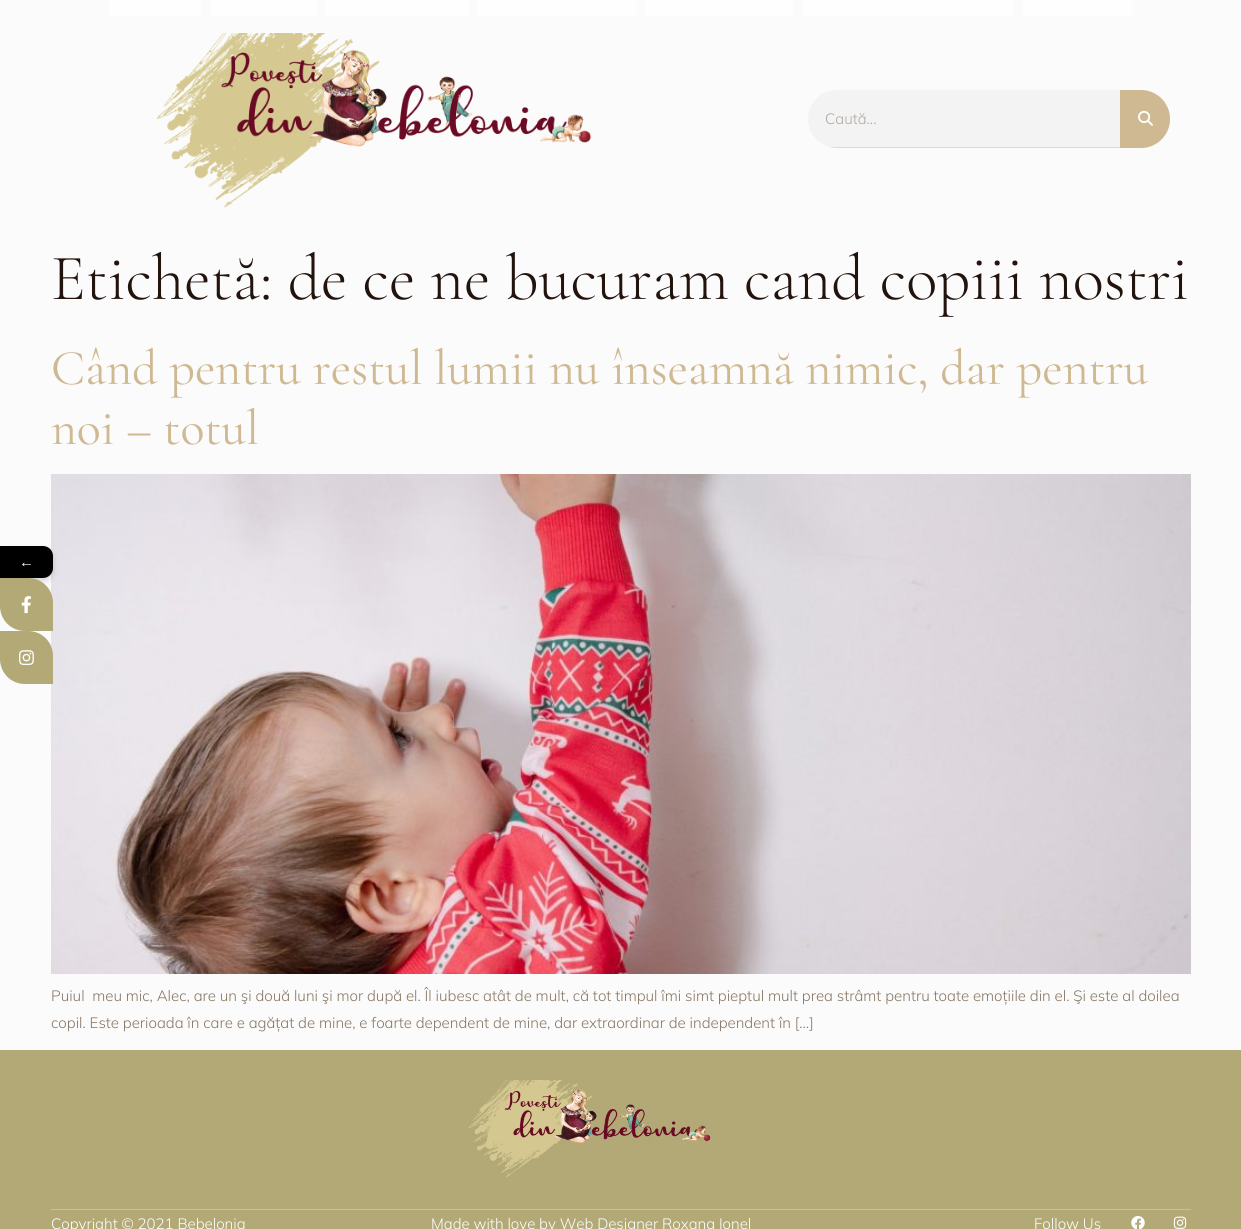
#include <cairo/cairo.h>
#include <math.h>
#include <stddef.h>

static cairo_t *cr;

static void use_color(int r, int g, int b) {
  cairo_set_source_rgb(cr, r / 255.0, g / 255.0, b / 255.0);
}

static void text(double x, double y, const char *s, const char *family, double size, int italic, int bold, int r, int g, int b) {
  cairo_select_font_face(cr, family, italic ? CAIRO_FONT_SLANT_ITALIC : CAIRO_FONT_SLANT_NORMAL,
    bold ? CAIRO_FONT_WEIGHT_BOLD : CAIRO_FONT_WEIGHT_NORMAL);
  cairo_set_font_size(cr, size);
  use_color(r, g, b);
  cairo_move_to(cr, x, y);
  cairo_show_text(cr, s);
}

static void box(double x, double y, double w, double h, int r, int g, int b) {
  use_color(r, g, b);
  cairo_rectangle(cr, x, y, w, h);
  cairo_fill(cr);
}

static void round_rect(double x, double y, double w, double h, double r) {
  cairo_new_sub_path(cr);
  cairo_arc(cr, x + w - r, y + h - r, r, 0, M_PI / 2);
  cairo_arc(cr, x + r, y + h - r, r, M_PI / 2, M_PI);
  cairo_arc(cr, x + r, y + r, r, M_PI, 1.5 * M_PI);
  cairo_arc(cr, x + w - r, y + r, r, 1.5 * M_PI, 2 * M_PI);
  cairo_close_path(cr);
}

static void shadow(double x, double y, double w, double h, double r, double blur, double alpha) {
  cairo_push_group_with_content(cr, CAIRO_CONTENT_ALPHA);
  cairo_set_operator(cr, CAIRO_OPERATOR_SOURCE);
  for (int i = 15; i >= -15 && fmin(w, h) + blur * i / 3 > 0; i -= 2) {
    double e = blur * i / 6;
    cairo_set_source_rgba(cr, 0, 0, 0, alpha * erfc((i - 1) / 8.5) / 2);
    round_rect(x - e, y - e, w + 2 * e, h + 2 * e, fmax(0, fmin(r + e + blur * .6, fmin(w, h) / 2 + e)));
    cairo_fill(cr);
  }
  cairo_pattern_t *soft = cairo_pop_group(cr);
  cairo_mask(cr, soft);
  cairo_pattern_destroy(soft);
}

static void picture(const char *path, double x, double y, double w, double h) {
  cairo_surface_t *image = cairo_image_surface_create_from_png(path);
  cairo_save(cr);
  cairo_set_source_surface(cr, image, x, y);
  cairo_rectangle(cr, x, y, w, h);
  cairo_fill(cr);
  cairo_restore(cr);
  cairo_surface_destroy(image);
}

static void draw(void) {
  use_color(252, 251, 251);
  cairo_paint(cr);
  box(109, 0, 92, 16, 254, 254, 254);
  box(210, 0, 107, 16, 254, 254, 254);
  box(326, 0, 143, 16, 254, 254, 254);
  box(478, 0, 158, 16, 254, 254, 254);
  box(645, 0, 148, 16, 254, 254, 254);
  box(802, 0, 212, 16, 254, 254, 254);
  box(1023, 0, 109, 16, 254, 254, 254);
  picture("img_01.png", 156, 33, 436, 175);
  use_color(243, 243, 243);
  round_rect(808, 90, 362, 58, 29);
  cairo_fill(cr);
  cairo_save(cr);
  round_rect(808, 90, 362, 58, 29);
  cairo_clip(cr);
  cairo_set_source_rgba(cr, 0.133, 0.078, 0.051, 0.11);
  cairo_rectangle(cr, 830, 147, 290, 1);
  cairo_fill(cr);
  cairo_restore(cr);
  use_color(206, 185, 146);
  cairo_new_path(cr);
  cairo_move_to(cr, 1120, 90);
  cairo_line_to(cr, 1141, 90);
  cairo_curve_to(cr, 1157, 90, 1170, 103, 1170, 119);
  cairo_curve_to(cr, 1170, 135, 1157, 148, 1141, 148);
  cairo_line_to(cr, 1120, 148);
  cairo_close_path(cr);
  cairo_fill(cr);
  picture("img_02.png", 1138, 110, 15, 16);
  picture("img_05.png", 51, 474, 1140, 500);
  use_color(0, 0, 0);
  shadow(0, 549, 53, 32, 10, 3, 0.16);
  use_color(0, 0, 0);
  cairo_new_path(cr);
  cairo_move_to(cr, 0, 546);
  cairo_line_to(cr, 43, 546);
  cairo_curve_to(cr, 48.5, 546, 53, 550.5, 53, 556);
  cairo_line_to(cr, 53, 568);
  cairo_curve_to(cr, 53, 573.5, 48.5, 578, 43, 578);
  cairo_line_to(cr, 0, 578);
  cairo_close_path(cr);
  cairo_fill(cr);
  use_color(179, 169, 119);
  cairo_new_path(cr);
  cairo_move_to(cr, 0, 578);
  cairo_line_to(cr, 28, 578);
  cairo_curve_to(cr, 42, 578, 53, 589, 53, 603);
  cairo_line_to(cr, 53, 631);
  cairo_line_to(cr, 25, 631);
  cairo_curve_to(cr, 11, 631, 0, 620, 0, 606);
  cairo_close_path(cr);
  cairo_fill(cr);
  picture("img_03.png", 21, 596, 10, 18);
  cairo_new_path(cr);
  cairo_move_to(cr, 0, 631);
  cairo_line_to(cr, 28, 631);
  cairo_curve_to(cr, 42, 631, 53, 642, 53, 656);
  cairo_line_to(cr, 53, 684);
  cairo_line_to(cr, 25, 684);
  cairo_curve_to(cr, 11, 684, 0, 673, 0, 659);
  cairo_close_path(cr);
  cairo_fill(cr);
  picture("img_04.png", 19, 650, 15, 16);
  box(0, 1050, 1241, 179, 179, 169, 119);
  picture("img_06.png", 468, 1080, 243, 97);
  box(51, 1209, 1140, 1, 198, 191, 153);
  picture("img_07.png", 1131, 1216, 14, 13);
  picture("img_08.png", 1173, 1216, 14, 13);
  text(825, 124, "Caută...", "Mulish Light", 15, 0, 0, 178, 167, 157);
  text(19, 567, "←", "Liberation Serif", 15, 0, 0, 255, 255, 255);
  text(51, 299, "Etichetă: de ce ne bucuram cand copiii nostri", "Cormorant Garamond Light", 65, 0, 0, 34, 20, 13);
  text(51, 384, "Când pentru restul lumii nu înseamnă nimic, dar pentru", "Cormorant Garamond", 50, 0, 0, 206, 185, 146);
  text(51, 444, "noi – totul", "Cormorant Garamond", 50, 0, 0, 206, 185, 146);
  text(51, 1001, "Puiul  meu mic, Alec, are un şi două luni şi mor după el. Îl iubesc atât de mult, că tot timpul îmi simt pieptul mult prea strâmt pentru toate emoțiile din el. Şi este al doilea", "Mulish Light", 15, 0, 0, 134, 117, 99);
  text(51, 1028, "copil. Este perioada în care e agățat de mine, e foarte dependent de mine, dar extraordinar de independent în […]", "Mulish Light", 15, 0, 0, 134, 117, 99);
  text(51, 1229, "Copyright © 2021 Bebelonia", "Mulish Light", 15, 0, 0, 255, 255, 255);
  text(431, 1229, "Made with love by Web Designer Roxana Ionel", "Mulish Light", 15, 0, 0, 255, 255, 255);
  text(1034, 1229, "Follow Us", "Mulish Light", 15, 0, 0, 255, 255, 255);
}

int main(void) {
  cairo_surface_t *surface = cairo_image_surface_create(CAIRO_FORMAT_RGB24, 1241, 1229);
  cr = cairo_create(surface);
  cairo_font_options_t *options = cairo_font_options_create();
  cairo_font_options_set_hint_metrics(options, CAIRO_HINT_METRICS_OFF);
  cairo_font_options_set_hint_style(options, CAIRO_HINT_STYLE_NONE);
  cairo_set_font_options(cr, options);
  cairo_set_miter_limit(cr, 4);
  draw();
  cairo_surface_write_to_png(surface, "out.png");
  cairo_font_options_destroy(options);
  cairo_destroy(cr);
  cairo_surface_destroy(surface);
  return 0;
}
